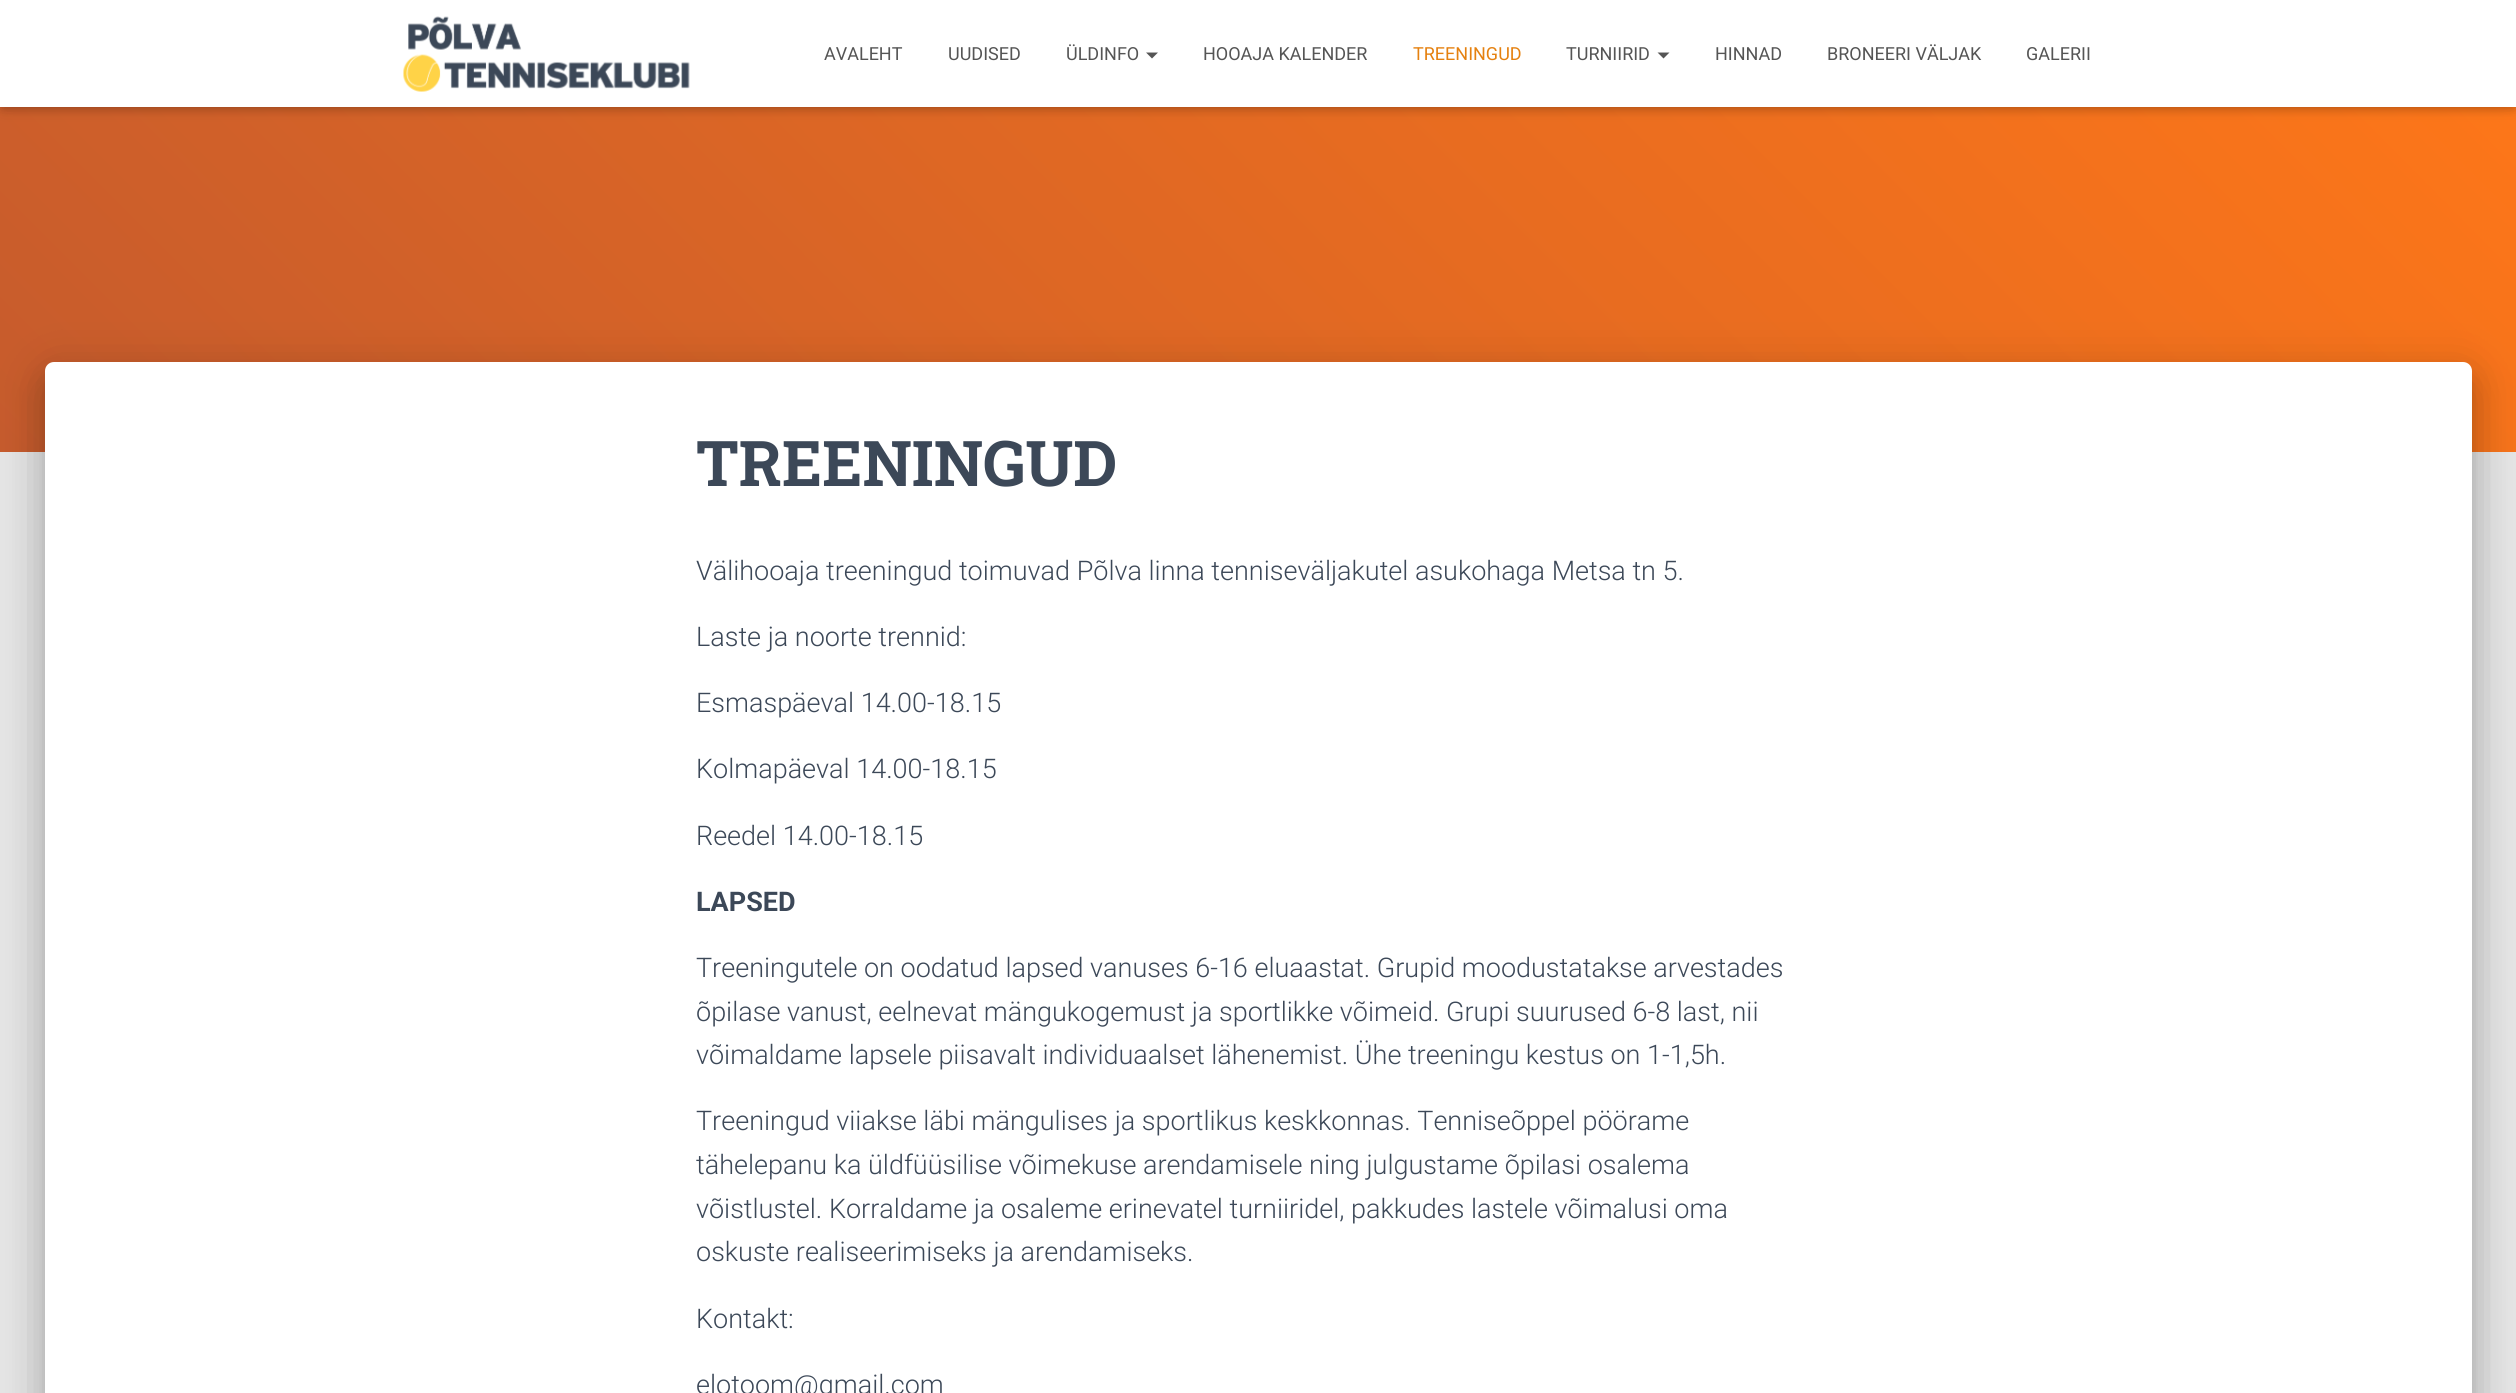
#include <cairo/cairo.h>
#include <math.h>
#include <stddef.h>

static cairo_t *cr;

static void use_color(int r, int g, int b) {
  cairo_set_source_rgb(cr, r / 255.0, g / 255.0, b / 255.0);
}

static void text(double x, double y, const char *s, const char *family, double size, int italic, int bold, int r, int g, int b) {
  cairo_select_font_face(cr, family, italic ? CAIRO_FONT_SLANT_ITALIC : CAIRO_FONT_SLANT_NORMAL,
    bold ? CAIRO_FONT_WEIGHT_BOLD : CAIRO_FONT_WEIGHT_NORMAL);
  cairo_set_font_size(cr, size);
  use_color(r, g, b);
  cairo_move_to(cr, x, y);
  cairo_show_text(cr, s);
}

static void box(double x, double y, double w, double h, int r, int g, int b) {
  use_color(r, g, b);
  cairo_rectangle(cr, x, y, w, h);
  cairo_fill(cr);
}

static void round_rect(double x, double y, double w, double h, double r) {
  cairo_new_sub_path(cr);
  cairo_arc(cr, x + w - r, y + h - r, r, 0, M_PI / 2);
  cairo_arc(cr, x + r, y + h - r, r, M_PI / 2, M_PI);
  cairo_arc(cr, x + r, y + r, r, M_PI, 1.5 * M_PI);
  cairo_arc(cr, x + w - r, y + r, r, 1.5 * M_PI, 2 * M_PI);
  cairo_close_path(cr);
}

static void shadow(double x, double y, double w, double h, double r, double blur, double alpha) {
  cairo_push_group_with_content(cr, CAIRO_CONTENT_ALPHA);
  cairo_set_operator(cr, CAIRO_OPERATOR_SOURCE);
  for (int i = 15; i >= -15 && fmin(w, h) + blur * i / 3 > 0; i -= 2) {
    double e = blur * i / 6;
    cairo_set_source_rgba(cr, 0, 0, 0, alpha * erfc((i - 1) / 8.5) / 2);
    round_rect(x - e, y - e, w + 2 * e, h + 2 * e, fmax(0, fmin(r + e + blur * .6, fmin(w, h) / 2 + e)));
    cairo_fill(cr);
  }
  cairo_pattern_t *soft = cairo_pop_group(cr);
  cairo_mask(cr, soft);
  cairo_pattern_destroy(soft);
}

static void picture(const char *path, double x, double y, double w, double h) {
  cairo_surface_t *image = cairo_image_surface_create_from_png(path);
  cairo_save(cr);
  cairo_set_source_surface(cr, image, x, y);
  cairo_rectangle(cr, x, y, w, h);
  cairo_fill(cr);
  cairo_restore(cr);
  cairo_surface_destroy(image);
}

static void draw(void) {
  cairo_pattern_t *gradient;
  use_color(229, 229, 229);
  cairo_paint(cr);
  gradient = cairo_pattern_create_linear(516, 968, 2001, -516);
  cairo_pattern_add_color_stop_rgba(gradient, 0, 0.776, 0.357, 0.176, 1);
  cairo_pattern_add_color_stop_rgba(gradient, 1, 1, 0.467, 0.094, 1);
  cairo_set_source(cr, gradient);
  cairo_pattern_destroy(gradient);
  cairo_rectangle(cr, 0, 107, 2516, 345);
  cairo_fill(cr);
  use_color(0, 0, 0);
  shadow(3, 9, 2511, 101, 0, 4, 0.1);
  shadow(0, 2, 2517, 106, 0, 7.5, 0.12);
  shadow(9, 11, 2499, 88, 0, 7.5, 0.42);
  box(0, 0, 2516, 107, 255, 255, 255);
  picture("img_01.png", 403, 16, 287, 76);
  use_color(85, 85, 85);
  cairo_new_path(cr);
  cairo_move_to(cr, 1146, 52.5);
  cairo_line_to(cr, 1158, 52.5);
  cairo_line_to(cr, 1152, 58.5);
  cairo_close_path(cr);
  cairo_fill(cr);
  cairo_new_path(cr);
  cairo_move_to(cr, 1657.5, 52.5);
  cairo_line_to(cr, 1669.5, 52.5);
  cairo_line_to(cr, 1663.5, 58.5);
  cairo_close_path(cr);
  cairo_fill(cr);
  use_color(0, 0, 0);
  shadow(53, 381, 2412, 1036, 1.5, 7.5, 0.2);
  shadow(38, 363, 2442, 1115, 17, 22.5, 0.12);
  shadow(42, 383, 2433, 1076, 12, 18, 0.14);
  use_color(255, 255, 255);
  cairo_new_path(cr);
  cairo_move_to(cr, 54, 362);
  cairo_line_to(cr, 2463, 362);
  cairo_curve_to(cr, 2468, 362, 2472, 366, 2472, 371);
  cairo_line_to(cr, 2472, 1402);
  cairo_line_to(cr, 45, 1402);
  cairo_line_to(cr, 45, 371);
  cairo_curve_to(cr, 45, 366, 49, 362, 54, 362);
  cairo_close_path(cr);
  cairo_fill(cr);
  text(824, 60, "AVALEHT", "Roboto", 18, 0, 0, 85, 85, 85);
  text(948, 60, "UUDISED", "Roboto", 18, 0, 0, 85, 85, 85);
  text(1066, 60, "ÜLDINFO", "Roboto", 18, 0, 0, 85, 85, 85);
  text(1203, 60, "HOOAJA KALENDER", "Roboto", 18, 0, 0, 85, 85, 85);
  text(1413, 60, "TREENINGUD", "Roboto", 18, 0, 0, 229, 129, 16);
  text(1566, 60, "TURNIIRID", "Roboto", 18, 0, 0, 85, 85, 85);
  text(1715, 60, "HINNAD", "Roboto", 18, 0, 0, 85, 85, 85);
  text(1827, 60, "BRONEERI VÄLJAK", "Roboto", 18, 0, 0, 85, 85, 85);
  text(2026, 60, "GALERII", "Roboto", 18, 0, 0, 85, 85, 85);
  text(696, 486, "TREENINGUD", "Roboto Slab", 63, 0, 1, 60, 72, 88);
  text(696, 580, "Välihooaja treeningud toimuvad Põlva linna tenniseväljakutel asukohaga Metsa tn 5.", "Roboto Light", 27, 0, 0, 60, 72, 88);
  text(696, 646, "Laste ja noorte trennid:", "Roboto Light", 27, 0, 0, 60, 72, 88);
  text(696, 712, "Esmaspäeval 14.00-18.15", "Roboto Light", 27, 0, 0, 60, 72, 88);
  text(696, 778, "Kolmapäeval 14.00-18.15", "Roboto Light", 27, 0, 0, 60, 72, 88);
  text(696, 845, "Reedel 14.00-18.15", "Roboto Light", 27, 0, 0, 60, 72, 88);
  text(696, 911, "LAPSED", "Roboto", 27, 0, 1, 60, 72, 88);
  text(696, 977, "Treeningutele on oodatud lapsed vanuses 6-16 eluaastat. Grupid moodustatakse arvestades", "Roboto Light", 27, 0, 0, 60, 72, 88);
  text(696, 1021, "õpilase vanust, eelnevat mängukogemust ja sportlikke võimeid. Grupi suurused 6-8 last, nii", "Roboto Light", 27, 0, 0, 60, 72, 88);
  text(696, 1064, "võimaldame lapsele piisavalt individuaalset lähenemist. Ühe treeningu kestus on 1-1,5h.", "Roboto Light", 27, 0, 0, 60, 72, 88);
  text(696, 1130, "Treeningud viiakse läbi mängulises ja sportlikus keskkonnas. Tenniseõppel pöörame", "Roboto Light", 27, 0, 0, 60, 72, 88);
  text(696, 1174, "tähelepanu ka üldfüüsilise võimekuse arendamisele ning julgustame õpilasi osalema", "Roboto Light", 27, 0, 0, 60, 72, 88);
  text(696, 1218, "võistlustel. Korraldame ja osaleme erinevatel turniiridel, pakkudes lastele võimalusi oma", "Roboto Light", 27, 0, 0, 60, 72, 88);
  text(696, 1261, "oskuste realiseerimiseks ja arendamiseks.", "Roboto Light", 27, 0, 0, 60, 72, 88);
  text(696, 1328, "Kontakt:", "Roboto Light", 27, 0, 0, 60, 72, 88);
  text(696, 1394, "elotoom@gmail.com", "Roboto Light", 27, 0, 0, 60, 72, 88);
}

int main(void) {
  cairo_surface_t *surface = cairo_image_surface_create(CAIRO_FORMAT_RGB24, 2516, 1393);
  cr = cairo_create(surface);
  cairo_font_options_t *options = cairo_font_options_create();
  cairo_font_options_set_hint_metrics(options, CAIRO_HINT_METRICS_OFF);
  cairo_font_options_set_hint_style(options, CAIRO_HINT_STYLE_NONE);
  cairo_set_font_options(cr, options);
  cairo_set_miter_limit(cr, 4);
  draw();
  cairo_surface_write_to_png(surface, "out.png");
  cairo_font_options_destroy(options);
  cairo_destroy(cr);
  cairo_surface_destroy(surface);
  return 0;
}
